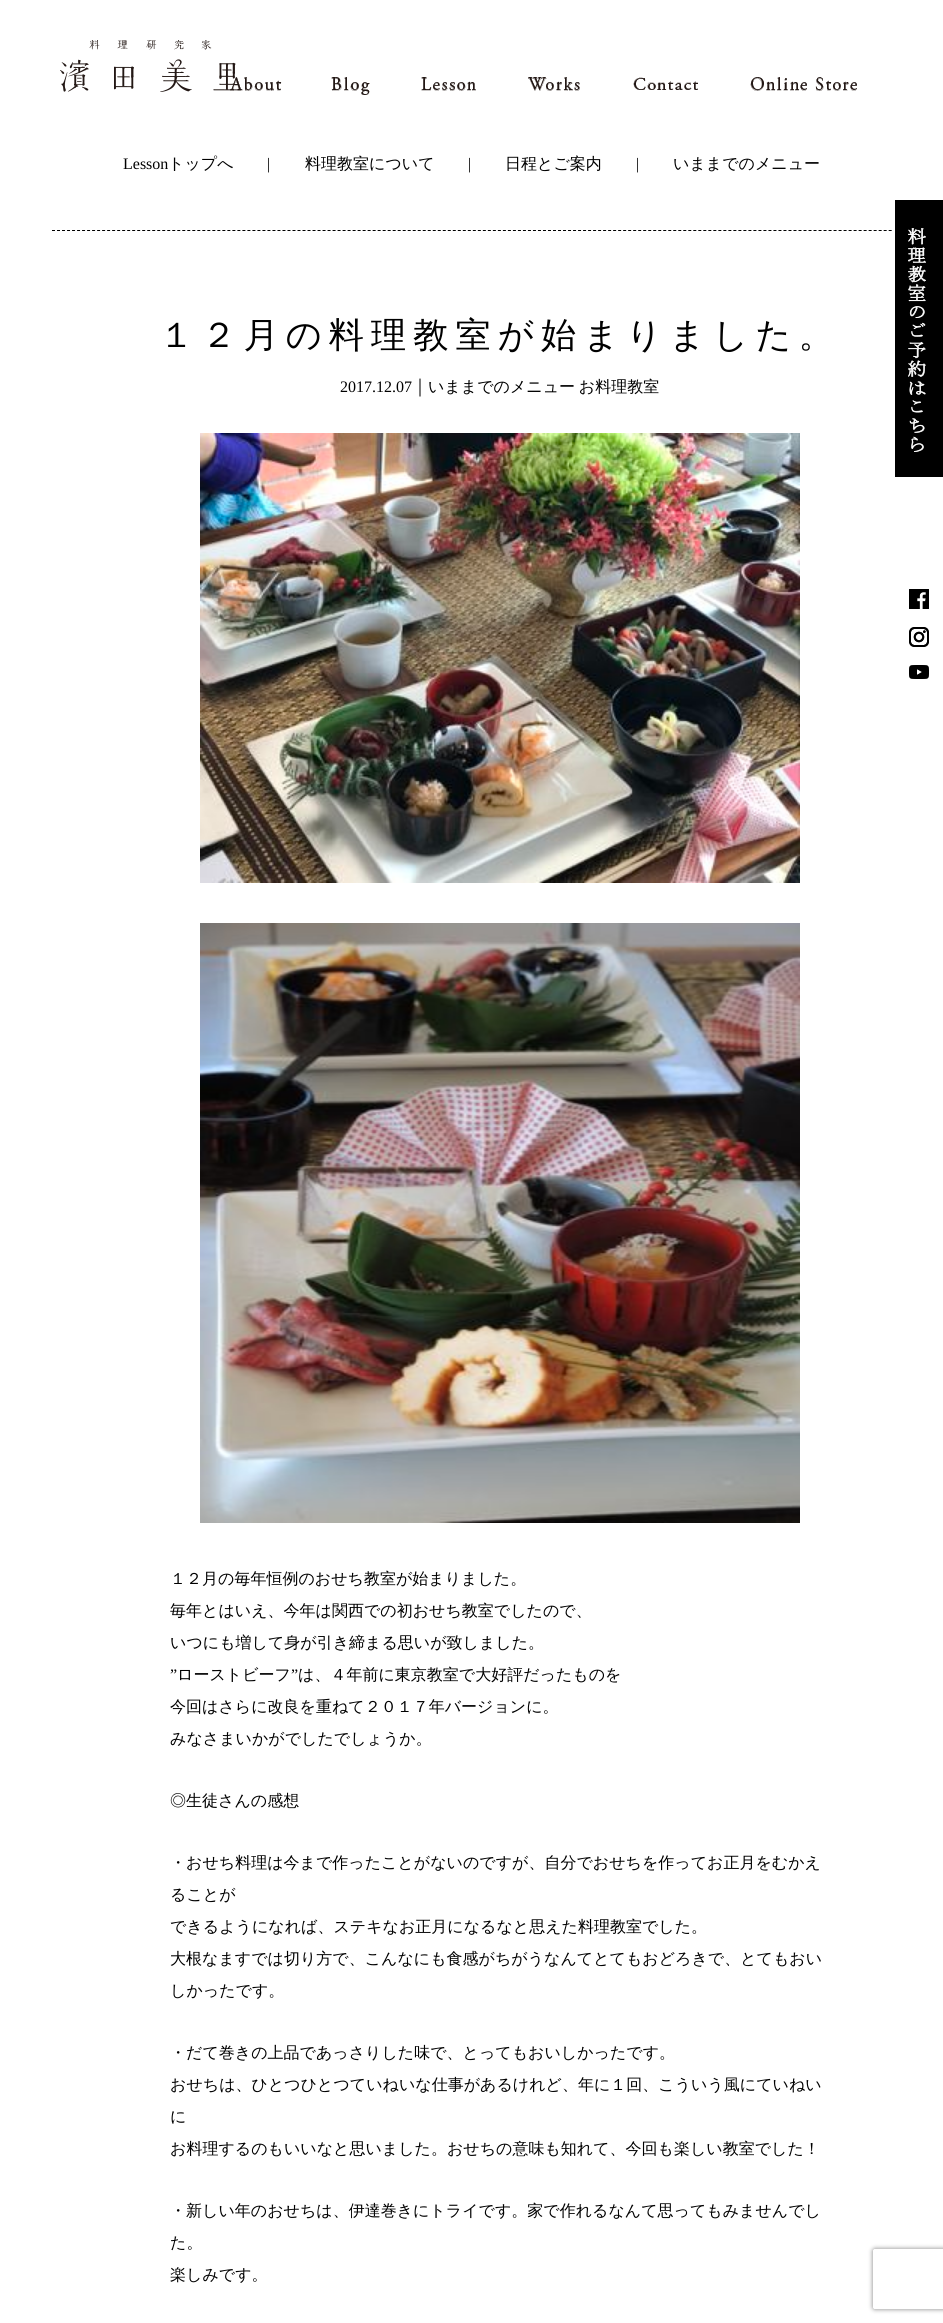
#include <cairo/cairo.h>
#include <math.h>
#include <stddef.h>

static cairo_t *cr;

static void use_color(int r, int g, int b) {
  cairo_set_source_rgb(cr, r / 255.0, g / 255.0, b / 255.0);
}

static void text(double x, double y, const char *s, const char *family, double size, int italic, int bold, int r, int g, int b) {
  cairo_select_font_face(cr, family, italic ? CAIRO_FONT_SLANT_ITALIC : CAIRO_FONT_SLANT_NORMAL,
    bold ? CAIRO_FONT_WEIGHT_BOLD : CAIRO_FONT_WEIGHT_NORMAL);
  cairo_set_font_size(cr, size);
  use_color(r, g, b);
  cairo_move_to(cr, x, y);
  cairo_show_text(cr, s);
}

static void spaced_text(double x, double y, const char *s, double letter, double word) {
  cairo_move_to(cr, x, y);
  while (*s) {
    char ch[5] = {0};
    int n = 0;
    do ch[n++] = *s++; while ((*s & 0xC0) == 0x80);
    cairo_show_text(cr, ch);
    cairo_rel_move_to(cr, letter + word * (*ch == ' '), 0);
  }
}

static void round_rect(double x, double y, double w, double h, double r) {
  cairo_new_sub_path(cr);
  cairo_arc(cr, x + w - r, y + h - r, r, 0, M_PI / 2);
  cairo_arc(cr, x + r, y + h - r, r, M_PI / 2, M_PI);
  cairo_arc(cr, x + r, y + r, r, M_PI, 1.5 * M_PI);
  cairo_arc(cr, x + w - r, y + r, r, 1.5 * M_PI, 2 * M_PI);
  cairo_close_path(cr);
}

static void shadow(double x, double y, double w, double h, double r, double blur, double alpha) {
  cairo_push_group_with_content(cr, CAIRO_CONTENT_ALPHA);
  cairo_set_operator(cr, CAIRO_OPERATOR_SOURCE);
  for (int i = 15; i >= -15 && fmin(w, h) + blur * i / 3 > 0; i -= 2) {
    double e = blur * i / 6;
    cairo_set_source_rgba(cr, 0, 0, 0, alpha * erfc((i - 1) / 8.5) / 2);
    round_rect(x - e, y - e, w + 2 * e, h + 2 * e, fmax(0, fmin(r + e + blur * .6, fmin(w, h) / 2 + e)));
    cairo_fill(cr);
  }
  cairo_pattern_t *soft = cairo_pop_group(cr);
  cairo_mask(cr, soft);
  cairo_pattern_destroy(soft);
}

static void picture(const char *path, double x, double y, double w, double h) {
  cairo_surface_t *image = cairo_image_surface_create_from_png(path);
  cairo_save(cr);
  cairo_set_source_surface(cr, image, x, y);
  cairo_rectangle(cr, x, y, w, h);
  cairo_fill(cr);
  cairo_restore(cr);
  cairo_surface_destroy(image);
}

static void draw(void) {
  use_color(255, 255, 255);
  cairo_paint(cr);
  picture("img_01.png", 60, 40, 181, 52);
  picture("img_02.png", 230, 77, 52, 14);
  picture("img_03.png", 331, 77, 39, 18);
  picture("img_04.png", 421, 77, 55, 14);
  picture("img_05.png", 528, 77, 52, 14);
  picture("img_06.png", 633, 77, 65, 13);
  picture("img_07.png", 750, 77, 107, 14);
  cairo_new_path(cr);
  cairo_move_to(cr, 52, 230.5);
  cairo_line_to(cr, 892, 230.5);
  use_color(0, 0, 0);
  cairo_set_line_width(cr, 1);
  cairo_set_dash(cr, (double[]){3, 2.01}, 2, 0);
  cairo_stroke(cr);
  picture("img_08.png", 200, 433, 600, 450);
  picture("img_09.png", 200, 923, 600, 600);
  picture("img_10.png", 895, 200, 48, 277);
  picture("img_11.png", 909, 589, 20, 20);
  picture("img_12.png", 909, 589, 20, 20);
  picture("img_13.png", 909, 627, 20, 20);
  picture("img_14.png", 909, 627, 20, 20);
  picture("img_15.png", 909, 665, 20, 14);
  picture("img_16.png", 909, 665, 20, 14);
  cairo_save(cr);
  cairo_set_fill_rule(cr, CAIRO_FILL_RULE_EVEN_ODD);
  cairo_new_path(cr);
  cairo_move_to(cr, 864, 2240);
  cairo_line_to(cr, 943, 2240);
  cairo_line_to(cr, 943, 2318);
  cairo_line_to(cr, 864, 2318);
  cairo_close_path(cr);
  cairo_move_to(cr, 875, 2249);
  cairo_line_to(cr, 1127, 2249);
  cairo_curve_to(cr, 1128, 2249, 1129, 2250, 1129, 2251);
  cairo_line_to(cr, 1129, 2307);
  cairo_curve_to(cr, 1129, 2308, 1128, 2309, 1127, 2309);
  cairo_line_to(cr, 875, 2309);
  cairo_curve_to(cr, 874, 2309, 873, 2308, 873, 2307);
  cairo_line_to(cr, 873, 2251);
  cairo_curve_to(cr, 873, 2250, 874, 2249, 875, 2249);
  cairo_close_path(cr);
  cairo_clip(cr);
  use_color(128, 128, 128);
  shadow(873, 2249, 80, 60, 2, 2.5, 1);
  cairo_restore(cr);
  text(123, 169, "Lesson", "Liberation Serif", 16, 0, 0, 0, 0, 0);
  text(168, 169, "トップへ", "WenQuanYi Zen Hei Medium", 16, 0, 0, 0, 0, 0);
  text(267, 169, "|", "Liberation Serif", 16, 0, 0, 0, 0, 0);
  text(305, 169, "料理教室について", "WenQuanYi Zen Hei Medium", 16, 0, 0, 0, 0, 0);
  text(468, 169, "|", "Liberation Serif", 16, 0, 0, 0, 0, 0);
  text(505, 169, "日程とご案内", "WenQuanYi Zen Hei Medium", 16, 0, 0, 0, 0, 0);
  text(636, 169, "|", "Liberation Serif", 16, 0, 0, 0, 0, 0);
  text(673, 169, "いままでのメニュー", "WenQuanYi Zen Hei Medium", 16, 0, 0, 0, 0, 0);
  cairo_set_font_size(cr, 35.25);
  spaced_text(159, 347, "１２月の料理教室が始まりました。", 7, 0);
  text(340, 392, "2017.12.07", "Liberation Serif", 16, 0, 0, 0, 0, 0);
  text(416, 392, "￨", "Noto Sans CJK JP", 16, 0, 0, 0, 0, 0);
  cairo_select_font_face(cr, "WenQuanYi Zen Hei Medium", CAIRO_FONT_SLANT_NORMAL, CAIRO_FONT_WEIGHT_NORMAL);
  spaced_text(428, 392, "いままでのメニュー お料理教室", 0, -1);
  text(170, 1584, "１２月の毎年恒例のおせち教室が始まりました。", "WenQuanYi Zen Hei Medium", 16, 0, 0, 0, 0, 0);
  text(170, 1616, "毎年とはいえ、今年は関西での初おせち教室でしたので、", "WenQuanYi Zen Hei Medium", 16, 0, 0, 0, 0, 0);
  text(170, 1648, "いつにも増して身が引き締まる思いが致しました。", "WenQuanYi Zen Hei Medium", 16, 0, 0, 0, 0, 0);
  text(170, 1680, "”", "Liberation Serif", 16, 0, 0, 0, 0, 0);
  text(177, 1680, "ローストビーフ", "WenQuanYi Zen Hei Medium", 16, 0, 0, 0, 0, 0);
  text(291, 1680, "”", "Liberation Serif", 16, 0, 0, 0, 0, 0);
  text(298, 1680, "は、４年前に東京教室で大好評だったものを", "WenQuanYi Zen Hei Medium", 16, 0, 0, 0, 0, 0);
  text(170, 1712, "今回はさらに改良を重ねて２０１７年バージョンに。", "WenQuanYi Zen Hei Medium", 16, 0, 0, 0, 0, 0);
  text(170, 1744, "みなさまいかがでしたでしょうか。", "WenQuanYi Zen Hei Medium", 16, 0, 0, 0, 0, 0);
  text(170, 1806, "◎生徒さんの感想", "WenQuanYi Zen Hei Medium", 16, 0, 0, 0, 0, 0);
  text(170, 1868, "・おせち料理は今まで作ったことがないのですが、自分でおせちを作ってお正月をむかえ", "WenQuanYi Zen Hei Medium", 16, 0, 0, 0, 0, 0);
  text(170, 1900, "ることが", "WenQuanYi Zen Hei Medium", 16, 0, 0, 0, 0, 0);
  text(170, 1932, "できるようになれば、ステキなお正月になるなと思えた料理教室でした。", "WenQuanYi Zen Hei Medium", 16, 0, 0, 0, 0, 0);
  text(170, 1964, "大根なますでは切り方で、こんなにも食感がちがうなんてとてもおどろきで、とてもおい", "WenQuanYi Zen Hei Medium", 16, 0, 0, 0, 0, 0);
  text(170, 1996, "しかったです。", "WenQuanYi Zen Hei Medium", 16, 0, 0, 0, 0, 0);
  text(170, 2058, "・だて巻きの上品であっさりした味で、とってもおいしかったです。", "WenQuanYi Zen Hei Medium", 16, 0, 0, 0, 0, 0);
  text(170, 2090, "おせちは、ひとつひとつていねいな仕事があるけれど、年に１回、こういう風にていねい", "WenQuanYi Zen Hei Medium", 16, 0, 0, 0, 0, 0);
  text(170, 2122, "に", "WenQuanYi Zen Hei Medium", 16, 0, 0, 0, 0, 0);
  text(170, 2154, "お料理するのもいいなと思いました。おせちの意味も知れて、今回も楽しい教室でした！", "WenQuanYi Zen Hei Medium", 16, 0, 0, 0, 0, 0);
  text(170, 2216, "・新しい年のおせちは、伊達巻きにトライです。家で作れるなんて思ってもみませんでし", "WenQuanYi Zen Hei Medium", 16, 0, 0, 0, 0, 0);
  text(170, 2248, "た。", "WenQuanYi Zen Hei Medium", 16, 0, 0, 0, 0, 0);
  text(170, 2280, "楽しみです。", "WenQuanYi Zen Hei Medium", 16, 0, 0, 0, 0, 0);
}

int main(void) {
  cairo_surface_t *surface = cairo_image_surface_create(CAIRO_FORMAT_RGB24, 943, 2323);
  cr = cairo_create(surface);
  cairo_font_options_t *options = cairo_font_options_create();
  cairo_font_options_set_hint_metrics(options, CAIRO_HINT_METRICS_OFF);
  cairo_font_options_set_hint_style(options, CAIRO_HINT_STYLE_NONE);
  cairo_set_font_options(cr, options);
  cairo_set_miter_limit(cr, 4);
  draw();
  cairo_surface_write_to_png(surface, "out.png");
  cairo_font_options_destroy(options);
  cairo_destroy(cr);
  cairo_surface_destroy(surface);
  return 0;
}
